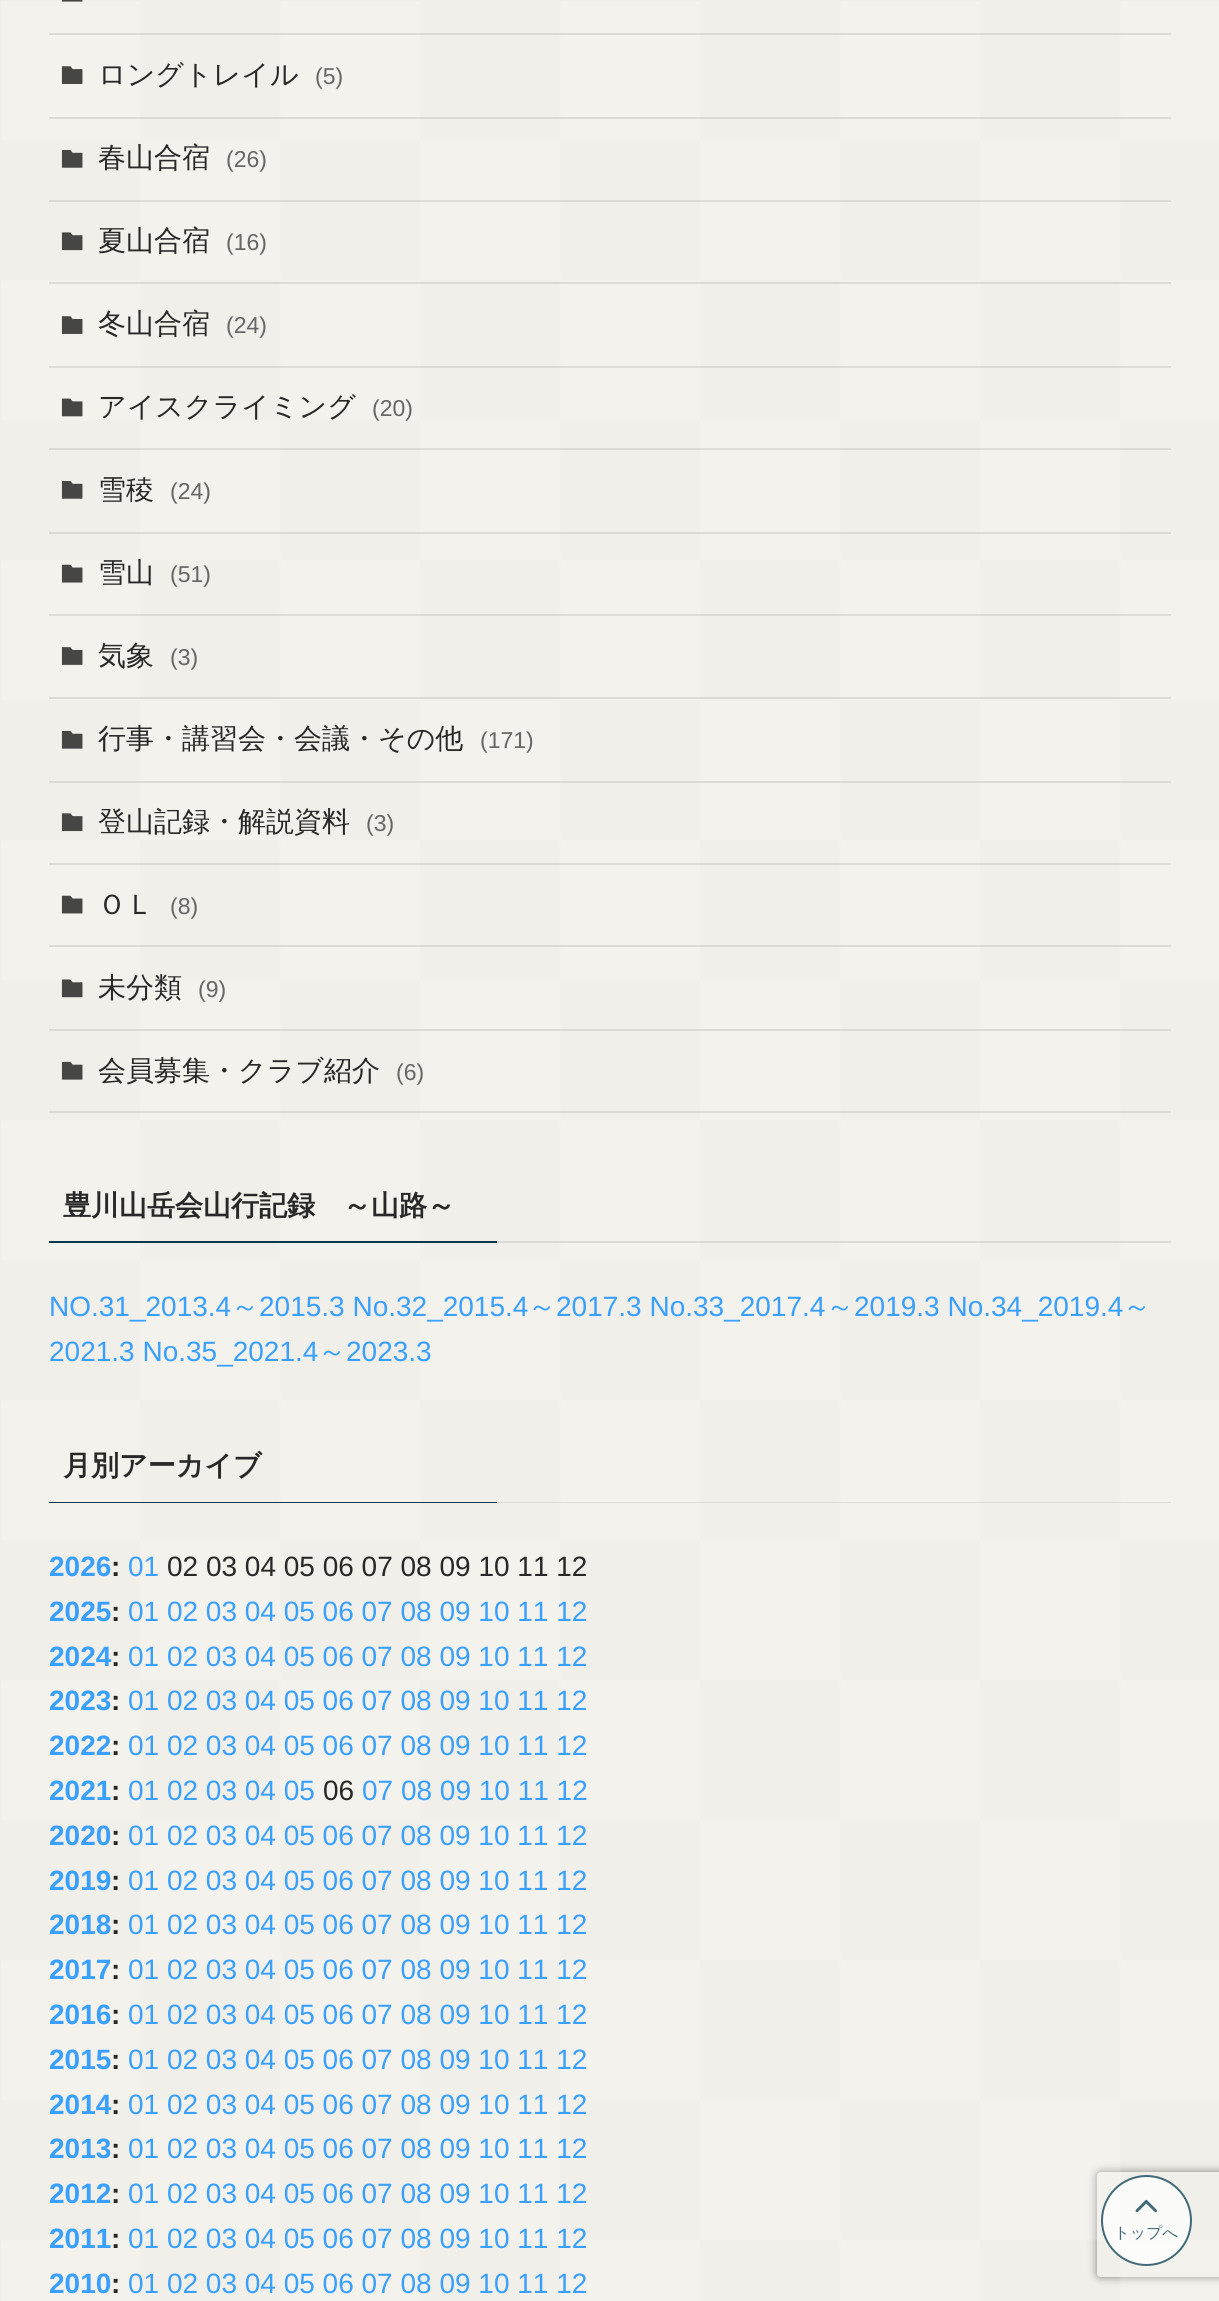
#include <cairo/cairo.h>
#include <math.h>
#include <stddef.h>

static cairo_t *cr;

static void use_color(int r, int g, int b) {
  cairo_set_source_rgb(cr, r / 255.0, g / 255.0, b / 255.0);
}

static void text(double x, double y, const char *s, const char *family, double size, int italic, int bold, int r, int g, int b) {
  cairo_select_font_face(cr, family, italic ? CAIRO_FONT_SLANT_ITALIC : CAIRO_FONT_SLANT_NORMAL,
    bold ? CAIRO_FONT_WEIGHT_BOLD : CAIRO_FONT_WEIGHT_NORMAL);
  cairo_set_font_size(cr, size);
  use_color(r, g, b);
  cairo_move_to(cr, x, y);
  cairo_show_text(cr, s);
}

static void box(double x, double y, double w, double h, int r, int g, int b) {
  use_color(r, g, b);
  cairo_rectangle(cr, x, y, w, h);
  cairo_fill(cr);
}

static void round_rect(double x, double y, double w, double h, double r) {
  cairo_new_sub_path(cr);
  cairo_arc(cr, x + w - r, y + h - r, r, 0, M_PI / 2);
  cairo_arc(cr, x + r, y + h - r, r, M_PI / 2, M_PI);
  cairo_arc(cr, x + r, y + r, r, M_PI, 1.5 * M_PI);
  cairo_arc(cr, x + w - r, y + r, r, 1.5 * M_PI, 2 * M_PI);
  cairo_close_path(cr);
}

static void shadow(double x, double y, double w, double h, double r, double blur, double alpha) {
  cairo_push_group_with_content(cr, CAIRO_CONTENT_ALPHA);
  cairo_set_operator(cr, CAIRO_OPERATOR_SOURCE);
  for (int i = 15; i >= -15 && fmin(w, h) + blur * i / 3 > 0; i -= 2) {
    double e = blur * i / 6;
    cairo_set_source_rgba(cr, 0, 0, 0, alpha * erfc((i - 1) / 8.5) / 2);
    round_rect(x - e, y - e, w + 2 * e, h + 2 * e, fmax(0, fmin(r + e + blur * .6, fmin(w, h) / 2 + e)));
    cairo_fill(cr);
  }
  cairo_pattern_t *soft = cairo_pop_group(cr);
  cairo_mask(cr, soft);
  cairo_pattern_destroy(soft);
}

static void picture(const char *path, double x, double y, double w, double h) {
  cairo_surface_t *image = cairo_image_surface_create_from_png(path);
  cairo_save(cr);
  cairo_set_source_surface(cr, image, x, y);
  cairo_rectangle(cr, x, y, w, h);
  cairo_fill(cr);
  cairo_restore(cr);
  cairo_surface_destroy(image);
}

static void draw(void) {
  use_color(241, 239, 233);
  cairo_paint(cr);
  cairo_save(cr);
  cairo_set_fill_rule(cr, CAIRO_FILL_RULE_EVEN_ODD);
  cairo_new_path(cr);
  cairo_move_to(cr, 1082, 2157);
  cairo_line_to(cr, 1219, 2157);
  cairo_line_to(cr, 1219, 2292);
  cairo_line_to(cr, 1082, 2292);
  cairo_close_path(cr);
  cairo_move_to(cr, 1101, 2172);
  cairo_line_to(cr, 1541, 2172);
  cairo_curve_to(cr, 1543, 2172, 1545, 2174, 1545, 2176);
  cairo_line_to(cr, 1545, 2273);
  cairo_curve_to(cr, 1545, 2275, 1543, 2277, 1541, 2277);
  cairo_line_to(cr, 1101, 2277);
  cairo_curve_to(cr, 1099, 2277, 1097, 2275, 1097, 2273);
  cairo_line_to(cr, 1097, 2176);
  cairo_curve_to(cr, 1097, 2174, 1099, 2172, 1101, 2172);
  cairo_close_path(cr);
  cairo_clip(cr);
  use_color(128, 128, 128);
  shadow(1097, 2172, 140, 105, 4, 4.5, 1);
  cairo_restore(cr);
  picture("img_01.png", 1, 1, 1218, 2300);
  cairo_set_source_rgba(cr, 0.78, 0.78, 0.78, 0.5);
  cairo_rectangle(cr, 49, 33, 1122, 2);
  cairo_fill(cr);
  picture("img_02.png", 61, 0, 22, 2);
  cairo_rectangle(cr, 49, 117, 1122, 2);
  cairo_fill(cr);
  picture("img_03.png", 61, 66, 22, 18);
  cairo_rectangle(cr, 49, 200, 1122, 2);
  cairo_fill(cr);
  picture("img_04.png", 61, 150, 22, 18);
  cairo_rectangle(cr, 49, 282, 1122, 2);
  cairo_fill(cr);
  picture("img_05.png", 61, 232, 22, 19);
  cairo_rectangle(cr, 49, 366, 1122, 2);
  cairo_fill(cr);
  picture("img_06.png", 61, 316, 22, 18);
  cairo_rectangle(cr, 49, 448, 1122, 2);
  cairo_fill(cr);
  picture("img_07.png", 61, 398, 22, 19);
  cairo_rectangle(cr, 49, 532, 1122, 2);
  cairo_fill(cr);
  picture("img_08.png", 61, 481, 22, 18);
  cairo_rectangle(cr, 49, 614, 1122, 2);
  cairo_fill(cr);
  picture("img_09.png", 61, 564, 22, 19);
  cairo_rectangle(cr, 49, 697, 1122, 2);
  cairo_fill(cr);
  picture("img_10.png", 61, 647, 22, 18);
  cairo_rectangle(cr, 49, 781, 1122, 2);
  cairo_fill(cr);
  picture("img_11.png", 61, 730, 22, 19);
  cairo_rectangle(cr, 49, 863, 1122, 2);
  cairo_fill(cr);
  picture("img_12.png", 61, 813, 22, 19);
  cairo_rectangle(cr, 49, 945, 1122, 2);
  cairo_fill(cr);
  picture("img_13.png", 61, 895, 22, 19);
  cairo_rectangle(cr, 49, 1029, 1122, 2);
  cairo_fill(cr);
  picture("img_14.png", 61, 979, 22, 19);
  cairo_rectangle(cr, 49, 1111, 1122, 2);
  cairo_fill(cr);
  picture("img_15.png", 61, 1061, 22, 19);
  box(49, 1241, 448, 2, 4, 56, 76);
  cairo_set_source_rgba(cr, 0.78, 0.78, 0.78, 0.5);
  cairo_rectangle(cr, 497, 1241, 674, 2);
  cairo_fill(cr);
  box(49, 1502, 448, 1, 4, 56, 76);
  cairo_set_source_rgba(cr, 0.78, 0.78, 0.78, 0.5);
  cairo_rectangle(cr, 497, 1502, 674, 1);
  cairo_fill(cr);
  cairo_set_source_rgba(cr, 1, 1, 1, 0.75);
  cairo_arc(cr, 1146.5, 2220.5, 45.5, 0, 2 * M_PI);
  cairo_fill(cr);
  cairo_arc(cr, 1146.5, 2220.5, 44.5, 0, 2 * M_PI);
  cairo_set_source_rgba(cr, 0.016, 0.22, 0.298, 0.75);
  cairo_stroke(cr);
  picture("img_16.png", 1135, 2199, 22, 14);
  text(98, 84, "ロングトレイル", "WenQuanYi Zen Hei Medium", 28, 0, 0, 40, 40, 40);
  text(315, 84, "(5)", "Liberation Sans", 23, 0, 0, 102, 102, 102);
  text(98, 167, "春山合宿", "WenQuanYi Zen Hei Medium", 28, 0, 0, 40, 40, 40);
  text(226, 167, "(26)", "Liberation Sans", 23, 0, 0, 102, 102, 102);
  text(98, 250, "夏山合宿", "WenQuanYi Zen Hei Medium", 28, 0, 0, 40, 40, 40);
  text(226, 250, "(16)", "Liberation Sans", 23, 0, 0, 102, 102, 102);
  text(98, 333, "冬山合宿", "WenQuanYi Zen Hei Medium", 28, 0, 0, 40, 40, 40);
  text(226, 333, "(24)", "Liberation Sans", 23, 0, 0, 102, 102, 102);
  text(98, 416, "アイスクライミング", "WenQuanYi Zen Hei Medium", 28, 0, 0, 40, 40, 40);
  text(372, 416, "(20)", "Liberation Sans", 23, 0, 0, 102, 102, 102);
  text(98, 499, "雪稜", "WenQuanYi Zen Hei Medium", 28, 0, 0, 40, 40, 40);
  text(170, 499, "(24)", "Liberation Sans", 23, 0, 0, 102, 102, 102);
  text(98, 582, "雪山", "WenQuanYi Zen Hei Medium", 28, 0, 0, 40, 40, 40);
  text(170, 582, "(51)", "Liberation Sans", 23, 0, 0, 102, 102, 102);
  text(98, 665, "気象", "WenQuanYi Zen Hei Medium", 28, 0, 0, 40, 40, 40);
  text(170, 665, "(3)", "Liberation Sans", 23, 0, 0, 102, 102, 102);
  text(98, 748, "行事・講習会・会議・その他", "WenQuanYi Zen Hei Medium", 28, 0, 0, 40, 40, 40);
  text(480, 748, "(171)", "Liberation Sans", 23, 0, 0, 102, 102, 102);
  text(98, 831, "登山記録・解説資料", "WenQuanYi Zen Hei Medium", 28, 0, 0, 40, 40, 40);
  text(366, 831, "(3)", "Liberation Sans", 23, 0, 0, 102, 102, 102);
  text(98, 914, "ＯＬ", "WenQuanYi Zen Hei Medium", 28, 0, 0, 40, 40, 40);
  text(170, 914, "(8)", "Liberation Sans", 23, 0, 0, 102, 102, 102);
  text(98, 997, "未分類", "WenQuanYi Zen Hei Medium", 28, 0, 0, 40, 40, 40);
  text(198, 997, "(9)", "Liberation Sans", 23, 0, 0, 102, 102, 102);
  text(98, 1080, "会員募集・クラブ紹介", "WenQuanYi Zen Hei Medium", 28, 0, 0, 40, 40, 40);
  text(396, 1080, "(6)", "Liberation Sans", 23, 0, 0, 102, 102, 102);
  text(63, 1215, "豊川山岳会山行記録　～山路～", "WenQuanYi Zen Hei", 28, 0, 1, 40, 40, 40);
  text(49, 1316, "NO.31_2013.4", "Liberation Sans", 28, 0, 0, 57, 160, 255);
  text(231, 1316, "～", "WenQuanYi Zen Hei Medium", 28, 0, 0, 57, 160, 255);
  text(259, 1316, "2015.3 No.32_2015.4", "Liberation Sans", 28, 0, 0, 57, 160, 255);
  text(528, 1316, "～", "WenQuanYi Zen Hei Medium", 28, 0, 0, 57, 160, 255);
  text(556, 1316, "2017.3 No.33_2017.4", "Liberation Sans", 28, 0, 0, 57, 160, 255);
  text(826, 1316, "～", "WenQuanYi Zen Hei Medium", 28, 0, 0, 57, 160, 255);
  text(854, 1316, "2019.3 No.34_2019.4", "Liberation Sans", 28, 0, 0, 57, 160, 255);
  text(1123, 1316, "～", "WenQuanYi Zen Hei Medium", 28, 0, 0, 57, 160, 255);
  text(49, 1361, "2021.3 No.35_2021.4", "Liberation Sans", 28, 0, 0, 57, 160, 255);
  text(318, 1361, "～", "WenQuanYi Zen Hei Medium", 28, 0, 0, 57, 160, 255);
  text(346, 1361, "2023.3", "Liberation Sans", 28, 0, 0, 57, 160, 255);
  text(63, 1475, "月別アーカイブ", "WenQuanYi Zen Hei", 28, 0, 1, 40, 40, 40);
  text(49, 1576, "2026", "Liberation Sans", 28, 0, 1, 57, 160, 255);
  text(111, 1576, ":", "Liberation Sans", 28, 0, 1, 40, 40, 40);
  text(128, 1576, "01", "Liberation Sans", 28, 0, 0, 57, 160, 255);
  text(167, 1576, "02 03 04 05 06 07 08 09 10 11 12", "Liberation Sans", 28, 0, 0, 40, 40, 40);
  text(49, 1621, "2025", "Liberation Sans", 28, 0, 1, 57, 160, 255);
  text(111, 1621, ":", "Liberation Sans", 28, 0, 1, 40, 40, 40);
  text(128, 1621, "01 02 03 04 05 06 07 08 09 10 11 12", "Liberation Sans", 28, 0, 0, 57, 160, 255);
  text(49, 1666, "2024", "Liberation Sans", 28, 0, 1, 57, 160, 255);
  text(111, 1666, ":", "Liberation Sans", 28, 0, 1, 40, 40, 40);
  text(128, 1666, "01 02 03 04 05 06 07 08 09 10 11 12", "Liberation Sans", 28, 0, 0, 57, 160, 255);
  text(49, 1710, "2023", "Liberation Sans", 28, 0, 1, 57, 160, 255);
  text(111, 1710, ":", "Liberation Sans", 28, 0, 1, 40, 40, 40);
  text(128, 1710, "01 02 03 04 05 06 07 08 09 10 11 12", "Liberation Sans", 28, 0, 0, 57, 160, 255);
  text(49, 1755, "2022", "Liberation Sans", 28, 0, 1, 57, 160, 255);
  text(111, 1755, ":", "Liberation Sans", 28, 0, 1, 40, 40, 40);
  text(128, 1755, "01 02 03 04 05 06 07 08 09 10 11 12", "Liberation Sans", 28, 0, 0, 57, 160, 255);
  text(49, 1800, "2021", "Liberation Sans", 28, 0, 1, 57, 160, 255);
  text(111, 1800, ":", "Liberation Sans", 28, 0, 1, 40, 40, 40);
  text(128, 1800, "01 02 03 04 05", "Liberation Sans", 28, 0, 0, 57, 160, 255);
  text(323, 1800, "06", "Liberation Sans", 28, 0, 0, 40, 40, 40);
  text(362, 1800, "07 08 09 10 11 12", "Liberation Sans", 28, 0, 0, 57, 160, 255);
  text(49, 1845, "2020", "Liberation Sans", 28, 0, 1, 57, 160, 255);
  text(111, 1845, ":", "Liberation Sans", 28, 0, 1, 40, 40, 40);
  text(128, 1845, "01 02 03 04 05 06 07 08 09 10 11 12", "Liberation Sans", 28, 0, 0, 57, 160, 255);
  text(49, 1890, "2019", "Liberation Sans", 28, 0, 1, 57, 160, 255);
  text(111, 1890, ":", "Liberation Sans", 28, 0, 1, 40, 40, 40);
  text(128, 1890, "01 02 03 04 05 06 07 08 09 10 11 12", "Liberation Sans", 28, 0, 0, 57, 160, 255);
  text(49, 1934, "2018", "Liberation Sans", 28, 0, 1, 57, 160, 255);
  text(111, 1934, ":", "Liberation Sans", 28, 0, 1, 40, 40, 40);
  text(128, 1934, "01 02 03 04 05 06 07 08 09 10 11 12", "Liberation Sans", 28, 0, 0, 57, 160, 255);
  text(49, 1979, "2017", "Liberation Sans", 28, 0, 1, 57, 160, 255);
  text(111, 1979, ":", "Liberation Sans", 28, 0, 1, 40, 40, 40);
  text(128, 1979, "01 02 03 04 05 06 07 08 09 10 11 12", "Liberation Sans", 28, 0, 0, 57, 160, 255);
  text(49, 2024, "2016", "Liberation Sans", 28, 0, 1, 57, 160, 255);
  text(111, 2024, ":", "Liberation Sans", 28, 0, 1, 40, 40, 40);
  text(128, 2024, "01 02 03 04 05 06 07 08 09 10 11 12", "Liberation Sans", 28, 0, 0, 57, 160, 255);
  text(49, 2069, "2015", "Liberation Sans", 28, 0, 1, 57, 160, 255);
  text(111, 2069, ":", "Liberation Sans", 28, 0, 1, 40, 40, 40);
  text(128, 2069, "01 02 03 04 05 06 07 08 09 10 11 12", "Liberation Sans", 28, 0, 0, 57, 160, 255);
  text(49, 2114, "2014", "Liberation Sans", 28, 0, 1, 57, 160, 255);
  text(111, 2114, ":", "Liberation Sans", 28, 0, 1, 40, 40, 40);
  text(128, 2114, "01 02 03 04 05 06 07 08 09 10 11 12", "Liberation Sans", 28, 0, 0, 57, 160, 255);
  text(49, 2158, "2013", "Liberation Sans", 28, 0, 1, 57, 160, 255);
  text(111, 2158, ":", "Liberation Sans", 28, 0, 1, 40, 40, 40);
  text(128, 2158, "01 02 03 04 05 06 07 08 09 10 11 12", "Liberation Sans", 28, 0, 0, 57, 160, 255);
  text(49, 2203, "2012", "Liberation Sans", 28, 0, 1, 57, 160, 255);
  text(111, 2203, ":", "Liberation Sans", 28, 0, 1, 40, 40, 40);
  text(128, 2203, "01 02 03 04 05 06 07 08 09 10 11 12", "Liberation Sans", 28, 0, 0, 57, 160, 255);
  text(49, 2248, "2011", "Liberation Sans", 28, 0, 1, 57, 160, 255);
  text(111, 2248, ":", "Liberation Sans", 28, 0, 1, 40, 40, 40);
  text(128, 2248, "01 02 03 04 05 06 07 08 09 10 11 12", "Liberation Sans", 28, 0, 0, 57, 160, 255);
  text(49, 2293, "2010", "Liberation Sans", 28, 0, 1, 57, 160, 255);
  text(111, 2293, ":", "Liberation Sans", 28, 0, 1, 40, 40, 40);
  text(128, 2293, "01 02 03 04 05 06 07 08 09 10 11 12", "Liberation Sans", 28, 0, 0, 57, 160, 255);
  text(1114, 2238, "トップへ", "WenQuanYi Zen Hei Medium", 15.75, 0, 0, 66, 105, 119);
}

int main(void) {
  cairo_surface_t *surface = cairo_image_surface_create(CAIRO_FORMAT_RGB24, 1219, 2301);
  cr = cairo_create(surface);
  cairo_font_options_t *options = cairo_font_options_create();
  cairo_font_options_set_hint_metrics(options, CAIRO_HINT_METRICS_OFF);
  cairo_font_options_set_hint_style(options, CAIRO_HINT_STYLE_NONE);
  cairo_set_font_options(cr, options);
  cairo_set_miter_limit(cr, 4);
  draw();
  cairo_surface_write_to_png(surface, "out.png");
  cairo_font_options_destroy(options);
  cairo_destroy(cr);
  cairo_surface_destroy(surface);
  return 0;
}
